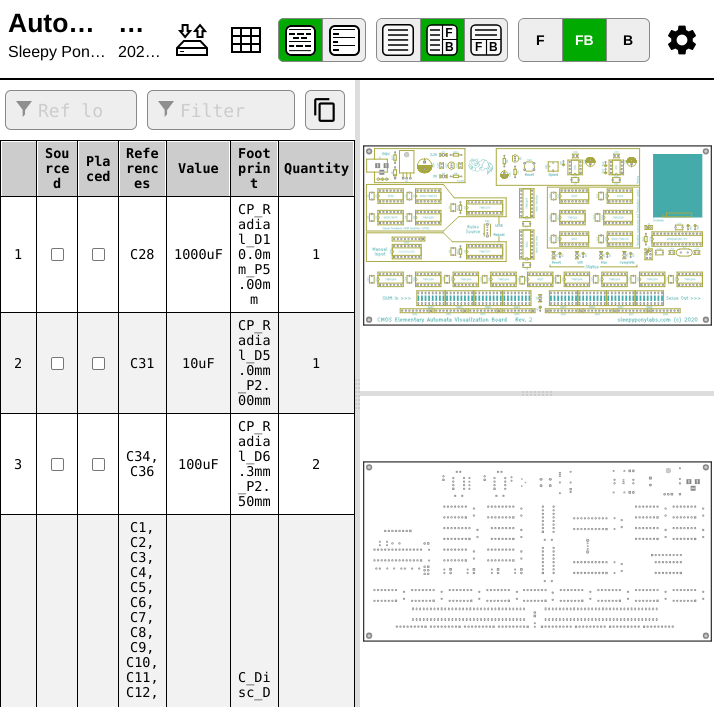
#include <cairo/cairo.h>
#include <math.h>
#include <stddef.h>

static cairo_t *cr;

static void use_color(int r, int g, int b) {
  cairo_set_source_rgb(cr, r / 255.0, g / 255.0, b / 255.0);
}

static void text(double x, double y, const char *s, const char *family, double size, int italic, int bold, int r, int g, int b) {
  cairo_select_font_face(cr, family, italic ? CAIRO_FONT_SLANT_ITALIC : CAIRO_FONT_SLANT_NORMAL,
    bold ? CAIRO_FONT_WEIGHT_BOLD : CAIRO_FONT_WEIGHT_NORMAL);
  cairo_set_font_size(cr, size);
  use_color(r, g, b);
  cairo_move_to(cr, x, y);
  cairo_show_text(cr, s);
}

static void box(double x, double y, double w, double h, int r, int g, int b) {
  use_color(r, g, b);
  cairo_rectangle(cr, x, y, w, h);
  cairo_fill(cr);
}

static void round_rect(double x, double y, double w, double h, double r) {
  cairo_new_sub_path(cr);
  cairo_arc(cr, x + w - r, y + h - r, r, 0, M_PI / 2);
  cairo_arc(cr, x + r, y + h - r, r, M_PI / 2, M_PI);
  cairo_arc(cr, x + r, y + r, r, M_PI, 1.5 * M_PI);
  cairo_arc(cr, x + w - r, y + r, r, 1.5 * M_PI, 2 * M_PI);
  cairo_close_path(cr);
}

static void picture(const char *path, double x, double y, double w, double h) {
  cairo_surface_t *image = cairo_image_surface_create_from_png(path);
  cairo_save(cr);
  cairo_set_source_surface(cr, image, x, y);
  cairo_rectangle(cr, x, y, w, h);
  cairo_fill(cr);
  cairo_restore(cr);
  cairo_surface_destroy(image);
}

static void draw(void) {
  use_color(255, 255, 255);
  cairo_paint(cr);
  box(0, 78, 714, 2, 0, 0, 0);
  picture("img_01.png", 176, 23, 32, 33);
  cairo_new_path(cr);
  cairo_move_to(cr, 232, 28);
  cairo_line_to(cr, 260, 28);
  cairo_line_to(cr, 260, 52);
  cairo_line_to(cr, 232, 52);
  cairo_close_path(cr);
  cairo_move_to(cr, 232, 36);
  cairo_line_to(cr, 260, 36);
  cairo_line_to(cr, 260, 44);
  cairo_line_to(cr, 232, 44);
  cairo_move_to(cr, 241, 28);
  cairo_line_to(cr, 241, 52);
  cairo_line_to(cr, 251, 52);
  cairo_line_to(cr, 251, 28);
  cairo_stroke(cr);
  use_color(0, 170, 0);
  cairo_new_path(cr);
  cairo_move_to(cr, 284, 18);
  cairo_line_to(cr, 322, 18);
  cairo_line_to(cr, 322, 62);
  cairo_line_to(cr, 284, 62);
  cairo_curve_to(cr, 280.5, 62, 278, 59.5, 278, 56);
  cairo_line_to(cr, 278, 24);
  cairo_curve_to(cr, 278, 20.5, 280.5, 18, 284, 18);
  cairo_close_path(cr);
  cairo_fill(cr);
  picture("img_02.png", 285, 25, 31, 31);
  use_color(136, 136, 136);
  cairo_set_fill_rule(cr, CAIRO_FILL_RULE_EVEN_ODD);
  cairo_new_path(cr);
  cairo_move_to(cr, 284, 18);
  cairo_line_to(cr, 322, 18);
  cairo_line_to(cr, 322, 62);
  cairo_line_to(cr, 284, 62);
  cairo_curve_to(cr, 281, 62, 278, 59, 278, 56);
  cairo_line_to(cr, 278, 24);
  cairo_curve_to(cr, 278, 21, 281, 18, 284, 18);
  cairo_close_path(cr);
  cairo_move_to(cr, 284, 19);
  cairo_line_to(cr, 322, 19);
  cairo_line_to(cr, 322, 61);
  cairo_line_to(cr, 284, 61);
  cairo_curve_to(cr, 281, 61, 279, 59, 279, 56);
  cairo_line_to(cr, 279, 24);
  cairo_curve_to(cr, 279, 21, 281, 19, 284, 19);
  cairo_close_path(cr);
  cairo_fill(cr);
  use_color(238, 238, 238);
  cairo_new_path(cr);
  cairo_move_to(cr, 322, 18);
  cairo_line_to(cr, 360, 18);
  cairo_curve_to(cr, 363.5, 18, 366, 20.5, 366, 24);
  cairo_line_to(cr, 366, 56);
  cairo_curve_to(cr, 366, 59.5, 363.5, 62, 360, 62);
  cairo_line_to(cr, 322, 62);
  cairo_close_path(cr);
  cairo_fill(cr);
  picture("img_03.png", 329, 25, 31, 31);
  cairo_new_path(cr);
  cairo_move_to(cr, 322.5, 18.5);
  cairo_line_to(cr, 360, 18.5);
  cairo_curve_to(cr, 363, 18.5, 365.5, 21, 365.5, 24);
  cairo_line_to(cr, 365.5, 56);
  cairo_curve_to(cr, 365.5, 59, 363, 61.5, 360, 61.5);
  cairo_line_to(cr, 322.5, 61.5);
  cairo_close_path(cr);
  use_color(136, 136, 136);
  cairo_set_line_width(cr, 1);
  cairo_stroke(cr);
  use_color(238, 238, 238);
  cairo_new_path(cr);
  cairo_move_to(cr, 382, 18);
  cairo_line_to(cr, 420, 18);
  cairo_line_to(cr, 420, 62);
  cairo_line_to(cr, 382, 62);
  cairo_curve_to(cr, 378.5, 62, 376, 59.5, 376, 56);
  cairo_line_to(cr, 376, 24);
  cairo_curve_to(cr, 376, 20.5, 378.5, 18, 382, 18);
  cairo_close_path(cr);
  cairo_fill(cr);
  picture("img_04.png", 382, 24, 32, 32);
  use_color(136, 136, 136);
  cairo_new_path(cr);
  cairo_move_to(cr, 382, 18);
  cairo_line_to(cr, 420, 18);
  cairo_line_to(cr, 420, 62);
  cairo_line_to(cr, 382, 62);
  cairo_curve_to(cr, 379, 62, 376, 59, 376, 56);
  cairo_line_to(cr, 376, 24);
  cairo_curve_to(cr, 376, 21, 379, 18, 382, 18);
  cairo_close_path(cr);
  cairo_move_to(cr, 382, 19);
  cairo_line_to(cr, 420, 19);
  cairo_line_to(cr, 420, 61);
  cairo_line_to(cr, 382, 61);
  cairo_curve_to(cr, 379, 61, 377, 59, 377, 56);
  cairo_line_to(cr, 377, 24);
  cairo_curve_to(cr, 377, 21, 379, 19, 382, 19);
  cairo_close_path(cr);
  cairo_fill(cr);
  box(421, 19, 43, 42, 0, 170, 0);
  picture("img_05.png", 426, 24, 32, 32);
  box(420, 18, 44, 1, 136, 136, 136);
  box(420, 61, 44, 1, 136, 136, 136);
  box(420, 18, 1, 44, 136, 136, 136);
  use_color(238, 238, 238);
  cairo_new_path(cr);
  cairo_move_to(cr, 464, 18);
  cairo_line_to(cr, 502, 18);
  cairo_curve_to(cr, 505.5, 18, 508, 20.5, 508, 24);
  cairo_line_to(cr, 508, 56);
  cairo_curve_to(cr, 508, 59.5, 505.5, 62, 502, 62);
  cairo_line_to(cr, 464, 62);
  cairo_close_path(cr);
  cairo_fill(cr);
  picture("img_06.png", 470, 24, 32, 32);
  cairo_new_path(cr);
  cairo_move_to(cr, 464.5, 18.5);
  cairo_line_to(cr, 502, 18.5);
  cairo_curve_to(cr, 505, 18.5, 507.5, 21, 507.5, 24);
  cairo_line_to(cr, 507.5, 56);
  cairo_curve_to(cr, 507.5, 59, 505, 61.5, 502, 61.5);
  cairo_line_to(cr, 464.5, 61.5);
  cairo_close_path(cr);
  use_color(136, 136, 136);
  cairo_stroke(cr);
  use_color(238, 238, 238);
  cairo_new_path(cr);
  cairo_move_to(cr, 524, 18);
  cairo_line_to(cr, 562, 18);
  cairo_line_to(cr, 562, 62);
  cairo_line_to(cr, 524, 62);
  cairo_curve_to(cr, 520.5, 62, 518, 59.5, 518, 56);
  cairo_line_to(cr, 518, 24);
  cairo_curve_to(cr, 518, 20.5, 520.5, 18, 524, 18);
  cairo_close_path(cr);
  cairo_fill(cr);
  use_color(136, 136, 136);
  cairo_new_path(cr);
  cairo_move_to(cr, 524, 18);
  cairo_line_to(cr, 562, 18);
  cairo_line_to(cr, 562, 62);
  cairo_line_to(cr, 524, 62);
  cairo_curve_to(cr, 521, 62, 518, 59, 518, 56);
  cairo_line_to(cr, 518, 24);
  cairo_curve_to(cr, 518, 21, 521, 18, 524, 18);
  cairo_close_path(cr);
  cairo_move_to(cr, 524, 19);
  cairo_line_to(cr, 562, 19);
  cairo_line_to(cr, 562, 61);
  cairo_line_to(cr, 524, 61);
  cairo_curve_to(cr, 521, 61, 519, 59, 519, 56);
  cairo_line_to(cr, 519, 24);
  cairo_curve_to(cr, 519, 21, 521, 19, 524, 19);
  cairo_close_path(cr);
  cairo_fill(cr);
  box(563, 19, 43, 42, 0, 170, 0);
  box(562, 18, 44, 1, 136, 136, 136);
  box(562, 61, 44, 1, 136, 136, 136);
  box(562, 18, 1, 44, 136, 136, 136);
  use_color(238, 238, 238);
  cairo_new_path(cr);
  cairo_move_to(cr, 606.5, 18.5);
  cairo_line_to(cr, 644, 18.5);
  cairo_curve_to(cr, 647, 18.5, 649.5, 21, 649.5, 24);
  cairo_line_to(cr, 649.5, 56);
  cairo_curve_to(cr, 649.5, 59, 647, 61.5, 644, 61.5);
  cairo_line_to(cr, 606.5, 61.5);
  cairo_close_path(cr);
  cairo_fill_preserve(cr);
  use_color(136, 136, 136);
  cairo_stroke(cr);
  picture("img_07.png", 668, 25, 28, 30);
  use_color(238, 238, 238);
  round_rect(5, 90, 132, 40, 6);
  cairo_fill(cr);
  picture("img_08.png", 16, 101, 16, 16);
  round_rect(5.5, 90.5, 131, 39, 5.5);
  use_color(136, 136, 136);
  cairo_stroke(cr);
  use_color(238, 238, 238);
  round_rect(147, 90, 148, 40, 6);
  cairo_fill(cr);
  picture("img_08.png", 158, 101, 16, 16);
  round_rect(147.5, 90.5, 147, 39, 5.5);
  use_color(136, 136, 136);
  cairo_stroke(cr);
  use_color(238, 238, 238);
  round_rect(305, 90, 40, 40, 6);
  cairo_fill(cr);
  picture("img_09.png", 314, 98, 21, 24);
  round_rect(305.5, 90.5, 39, 39, 5.5);
  use_color(136, 136, 136);
  cairo_stroke(cr);
  box(278, 140, 77, 1, 0, 0, 0);
  box(278, 196, 77, 1, 0, 0, 0);
  box(278, 312, 77, 1, 0, 0, 0);
  box(1, 313, 353, 100, 242, 242, 242);
  box(278, 413, 77, 1, 0, 0, 0);
  box(278, 514, 77, 1, 0, 0, 0);
  box(1, 515, 353, 192, 242, 242, 242);
  box(278, 514, 1, 193, 0, 0, 0);
  box(230, 514, 49, 1, 0, 0, 0);
  box(278, 413, 1, 102, 0, 0, 0);
  box(230, 413, 49, 1, 0, 0, 0);
  box(278, 312, 1, 102, 0, 0, 0);
  box(230, 312, 49, 1, 0, 0, 0);
  box(278, 196, 1, 117, 0, 0, 0);
  box(230, 196, 49, 1, 0, 0, 0);
  box(278, 140, 1, 57, 0, 0, 0);
  box(230, 140, 49, 1, 0, 0, 0);
  box(230, 514, 1, 193, 0, 0, 0);
  box(166, 514, 65, 1, 0, 0, 0);
  box(230, 413, 1, 102, 0, 0, 0);
  box(166, 413, 65, 1, 0, 0, 0);
  box(230, 312, 1, 102, 0, 0, 0);
  box(166, 312, 65, 1, 0, 0, 0);
  box(230, 196, 1, 117, 0, 0, 0);
  box(166, 196, 65, 1, 0, 0, 0);
  box(230, 140, 1, 57, 0, 0, 0);
  box(166, 140, 65, 1, 0, 0, 0);
  box(166, 514, 1, 193, 0, 0, 0);
  box(118, 514, 49, 1, 0, 0, 0);
  box(166, 413, 1, 102, 0, 0, 0);
  box(118, 413, 49, 1, 0, 0, 0);
  box(166, 312, 1, 102, 0, 0, 0);
  box(118, 312, 49, 1, 0, 0, 0);
  box(166, 196, 1, 117, 0, 0, 0);
  box(118, 196, 49, 1, 0, 0, 0);
  box(166, 140, 1, 57, 0, 0, 0);
  box(118, 140, 49, 1, 0, 0, 0);
  box(118, 514, 1, 193, 0, 0, 0);
  box(77, 514, 42, 1, 0, 0, 0);
  box(118, 413, 1, 102, 0, 0, 0);
  box(77, 413, 42, 1, 0, 0, 0);
  box(118, 312, 1, 102, 0, 0, 0);
  box(77, 312, 42, 1, 0, 0, 0);
  box(118, 196, 1, 117, 0, 0, 0);
  box(77, 196, 42, 1, 0, 0, 0);
  box(118, 140, 1, 57, 0, 0, 0);
  box(77, 140, 42, 1, 0, 0, 0);
  box(77, 514, 1, 193, 0, 0, 0);
  box(36, 514, 42, 1, 0, 0, 0);
  box(77, 413, 1, 102, 0, 0, 0);
  box(36, 413, 42, 1, 0, 0, 0);
  box(77, 312, 1, 102, 0, 0, 0);
  box(36, 312, 42, 1, 0, 0, 0);
  box(77, 196, 1, 117, 0, 0, 0);
  box(36, 196, 42, 1, 0, 0, 0);
  box(77, 140, 1, 57, 0, 0, 0);
  box(36, 140, 42, 1, 0, 0, 0);
  box(36, 514, 1, 193, 0, 0, 0);
  box(0, 514, 37, 1, 0, 0, 0);
  box(36, 413, 1, 102, 0, 0, 0);
  box(0, 413, 37, 1, 0, 0, 0);
  box(36, 312, 1, 102, 0, 0, 0);
  box(0, 312, 37, 1, 0, 0, 0);
  box(36, 196, 1, 117, 0, 0, 0);
  box(0, 196, 37, 1, 0, 0, 0);
  box(36, 140, 1, 57, 0, 0, 0);
  box(0, 140, 37, 1, 0, 0, 0);
  box(0, 514, 1, 193, 0, 0, 0);
  box(0, 413, 1, 102, 0, 0, 0);
  box(0, 312, 1, 102, 0, 0, 0);
  box(0, 196, 1, 117, 0, 0, 0);
  box(0, 140, 1, 57, 0, 0, 0);
  box(2, 142, 34, 54, 204, 204, 204);
  box(38, 142, 39, 54, 204, 204, 204);
  box(79, 142, 39, 54, 204, 204, 204);
  box(120, 142, 45, 54, 204, 204, 204);
  box(167, 142, 62, 54, 204, 204, 204);
  box(231, 142, 46, 54, 204, 204, 204);
  box(354, 514, 1, 193, 0, 0, 0);
  box(354, 413, 1, 102, 0, 0, 0);
  box(354, 312, 1, 102, 0, 0, 0);
  box(354, 196, 1, 117, 0, 0, 0);
  box(354, 140, 1, 57, 0, 0, 0);
  box(279, 142, 74, 54, 204, 204, 204);
  round_rect(51.5, 248.5, 12, 12, 1.5);
  use_color(118, 118, 118);
  cairo_stroke(cr);
  round_rect(92.5, 248.5, 12, 12, 1.5);
  cairo_stroke(cr);
  use_color(255, 255, 255);
  round_rect(51.5, 357.5, 12, 12, 1.5);
  cairo_fill_preserve(cr);
  use_color(118, 118, 118);
  cairo_stroke(cr);
  use_color(255, 255, 255);
  round_rect(92.5, 357.5, 12, 12, 1.5);
  cairo_fill_preserve(cr);
  use_color(118, 118, 118);
  cairo_stroke(cr);
  round_rect(51.5, 458.5, 12, 12, 1.5);
  cairo_stroke(cr);
  round_rect(92.5, 458.5, 12, 12, 1.5);
  cairo_stroke(cr);
  box(355, 80, 5, 627, 221, 221, 221);
  picture("img_10.png", 355, 379, 5, 30);
  picture("img_11.png", 363, 145, 349, 181);
  picture("img_12.png", 365, 148, 338, 176);
  box(360, 391, 354, 5, 221, 221, 221);
  picture("img_13.png", 522, 391, 30, 5);
  picture("img_14.png", 363, 461, 349, 181);
  text(8, 32, "Auto…", "Liberation Sans", 26.5, 0, 1, 0, 0, 0);
  text(118, 32, "…", "Liberation Sans", 26.5, 0, 1, 0, 0, 0);
  text(8, 57, "Sleepy Pon…", "Liberation Sans", 16, 0, 0, 0, 0, 0);
  text(118, 57, "202…", "Liberation Sans", 16, 0, 0, 0, 0, 0);
  text(536, 45, "F", "Liberation Sans", 14, 0, 1, 0, 0, 0);
  text(575, 45, "FB", "Liberation Sans", 14, 0, 1, 255, 255, 255);
  text(623, 45, "B", "Liberation Sans", 14, 0, 1, 0, 0, 0);
  text(38, 117, "Ref lo", "DejaVu Sans Mono", 18, 0, 0, 204, 204, 204);
  text(180, 117, "Filter", "DejaVu Sans Mono", 18, 0, 0, 204, 204, 204);
  text(45, 158, "Sou", "DejaVu Sans Mono", 13.5, 0, 1, 0, 0, 0);
  text(45, 173, "rce", "DejaVu Sans Mono", 13.5, 0, 1, 0, 0, 0);
  text(53, 188, "d", "DejaVu Sans Mono", 13.5, 0, 1, 0, 0, 0);
  text(86, 166, "Pla", "DejaVu Sans Mono", 13.5, 0, 1, 0, 0, 0);
  text(86, 181, "ced", "DejaVu Sans Mono", 13.5, 0, 1, 0, 0, 0);
  text(126, 158, "Refe", "DejaVu Sans Mono", 13.5, 0, 1, 0, 0, 0);
  text(126, 173, "renc", "DejaVu Sans Mono", 13.5, 0, 1, 0, 0, 0);
  text(134, 188, "es", "DejaVu Sans Mono", 13.5, 0, 1, 0, 0, 0);
  text(178, 173, "Value", "DejaVu Sans Mono", 13.5, 0, 1, 0, 0, 0);
  text(238, 158, "Foot", "DejaVu Sans Mono", 13.5, 0, 1, 0, 0, 0);
  text(238, 173, "prin", "DejaVu Sans Mono", 13.5, 0, 1, 0, 0, 0);
  text(250, 188, "t", "DejaVu Sans Mono", 13.5, 0, 1, 0, 0, 0);
  text(284, 173, "Quantity", "DejaVu Sans Mono", 13.5, 0, 1, 0, 0, 0);
  text(14, 259, "1", "DejaVu Sans Mono", 13.5, 0, 0, 0, 0, 0);
  text(130, 259, "C28", "DejaVu Sans Mono", 13.5, 0, 0, 0, 0, 0);
  text(174, 259, "1000uF", "DejaVu Sans Mono", 13.5, 0, 0, 0, 0, 0);
  text(238, 214, "CP_R", "DejaVu Sans Mono", 13.5, 0, 0, 0, 0, 0);
  text(238, 229, "adia", "DejaVu Sans Mono", 13.5, 0, 0, 0, 0, 0);
  text(238, 244, "l_D1", "DejaVu Sans Mono", 13.5, 0, 0, 0, 0, 0);
  text(238, 259, "0.0m", "DejaVu Sans Mono", 13.5, 0, 0, 0, 0, 0);
  text(238, 274, "m_P5", "DejaVu Sans Mono", 13.5, 0, 0, 0, 0, 0);
  text(238, 289, ".00m", "DejaVu Sans Mono", 13.5, 0, 0, 0, 0, 0);
  text(250, 304, "m", "DejaVu Sans Mono", 13.5, 0, 0, 0, 0, 0);
  text(312, 259, "1", "DejaVu Sans Mono", 13.5, 0, 0, 0, 0, 0);
  text(14, 368, "2", "DejaVu Sans Mono", 13.5, 0, 0, 0, 0, 0);
  text(130, 368, "C31", "DejaVu Sans Mono", 13.5, 0, 0, 0, 0, 0);
  text(182, 368, "10uF", "DejaVu Sans Mono", 13.5, 0, 0, 0, 0, 0);
  text(238, 330, "CP_R", "DejaVu Sans Mono", 13.5, 0, 0, 0, 0, 0);
  text(238, 345, "adia", "DejaVu Sans Mono", 13.5, 0, 0, 0, 0, 0);
  text(238, 360, "l_D5", "DejaVu Sans Mono", 13.5, 0, 0, 0, 0, 0);
  text(238, 375, ".0mm", "DejaVu Sans Mono", 13.5, 0, 0, 0, 0, 0);
  text(238, 390, "_P2.", "DejaVu Sans Mono", 13.5, 0, 0, 0, 0, 0);
  text(238, 405, "00mm", "DejaVu Sans Mono", 13.5, 0, 0, 0, 0, 0);
  text(312, 368, "1", "DejaVu Sans Mono", 13.5, 0, 0, 0, 0, 0);
  text(14, 469, "3", "DejaVu Sans Mono", 13.5, 0, 0, 0, 0, 0);
  text(126, 461, "C34,", "DejaVu Sans Mono", 13.5, 0, 0, 0, 0, 0);
  text(130, 476, "C36", "DejaVu Sans Mono", 13.5, 0, 0, 0, 0, 0);
  text(178, 469, "100uF", "DejaVu Sans Mono", 13.5, 0, 0, 0, 0, 0);
  text(238, 431, "CP_R", "DejaVu Sans Mono", 13.5, 0, 0, 0, 0, 0);
  text(238, 446, "adia", "DejaVu Sans Mono", 13.5, 0, 0, 0, 0, 0);
  text(238, 461, "l_D6", "DejaVu Sans Mono", 13.5, 0, 0, 0, 0, 0);
  text(238, 476, ".3mm", "DejaVu Sans Mono", 13.5, 0, 0, 0, 0, 0);
  text(238, 491, "_P2.", "DejaVu Sans Mono", 13.5, 0, 0, 0, 0, 0);
  text(238, 506, "50mm", "DejaVu Sans Mono", 13.5, 0, 0, 0, 0, 0);
  text(312, 469, "2", "DejaVu Sans Mono", 13.5, 0, 0, 0, 0, 0);
  text(130, 532, "C1,", "DejaVu Sans Mono", 13.5, 0, 0, 0, 0, 0);
  text(130, 547, "C2,", "DejaVu Sans Mono", 13.5, 0, 0, 0, 0, 0);
  text(130, 562, "C3,", "DejaVu Sans Mono", 13.5, 0, 0, 0, 0, 0);
  text(130, 577, "C4,", "DejaVu Sans Mono", 13.5, 0, 0, 0, 0, 0);
  text(130, 592, "C5,", "DejaVu Sans Mono", 13.5, 0, 0, 0, 0, 0);
  text(130, 607, "C6,", "DejaVu Sans Mono", 13.5, 0, 0, 0, 0, 0);
  text(130, 622, "C7,", "DejaVu Sans Mono", 13.5, 0, 0, 0, 0, 0);
  text(130, 637, "C8,", "DejaVu Sans Mono", 13.5, 0, 0, 0, 0, 0);
  text(130, 652, "C9,", "DejaVu Sans Mono", 13.5, 0, 0, 0, 0, 0);
  text(126, 667, "C10,", "DejaVu Sans Mono", 13.5, 0, 0, 0, 0, 0);
  text(126, 682, "C11,", "DejaVu Sans Mono", 13.5, 0, 0, 0, 0, 0);
  text(126, 697, "C12,", "DejaVu Sans Mono", 13.5, 0, 0, 0, 0, 0);
  text(238, 682, "C_Di", "DejaVu Sans Mono", 13.5, 0, 0, 0, 0, 0);
  text(238, 697, "sc_D", "DejaVu Sans Mono", 13.5, 0, 0, 0, 0, 0);
}

int main(void) {
  cairo_surface_t *surface = cairo_image_surface_create(CAIRO_FORMAT_RGB24, 714, 707);
  cr = cairo_create(surface);
  cairo_font_options_t *options = cairo_font_options_create();
  cairo_font_options_set_hint_metrics(options, CAIRO_HINT_METRICS_OFF);
  cairo_font_options_set_hint_style(options, CAIRO_HINT_STYLE_NONE);
  cairo_set_font_options(cr, options);
  cairo_set_miter_limit(cr, 4);
  draw();
  cairo_surface_write_to_png(surface, "out.png");
  cairo_font_options_destroy(options);
  cairo_destroy(cr);
  cairo_surface_destroy(surface);
  return 0;
}
